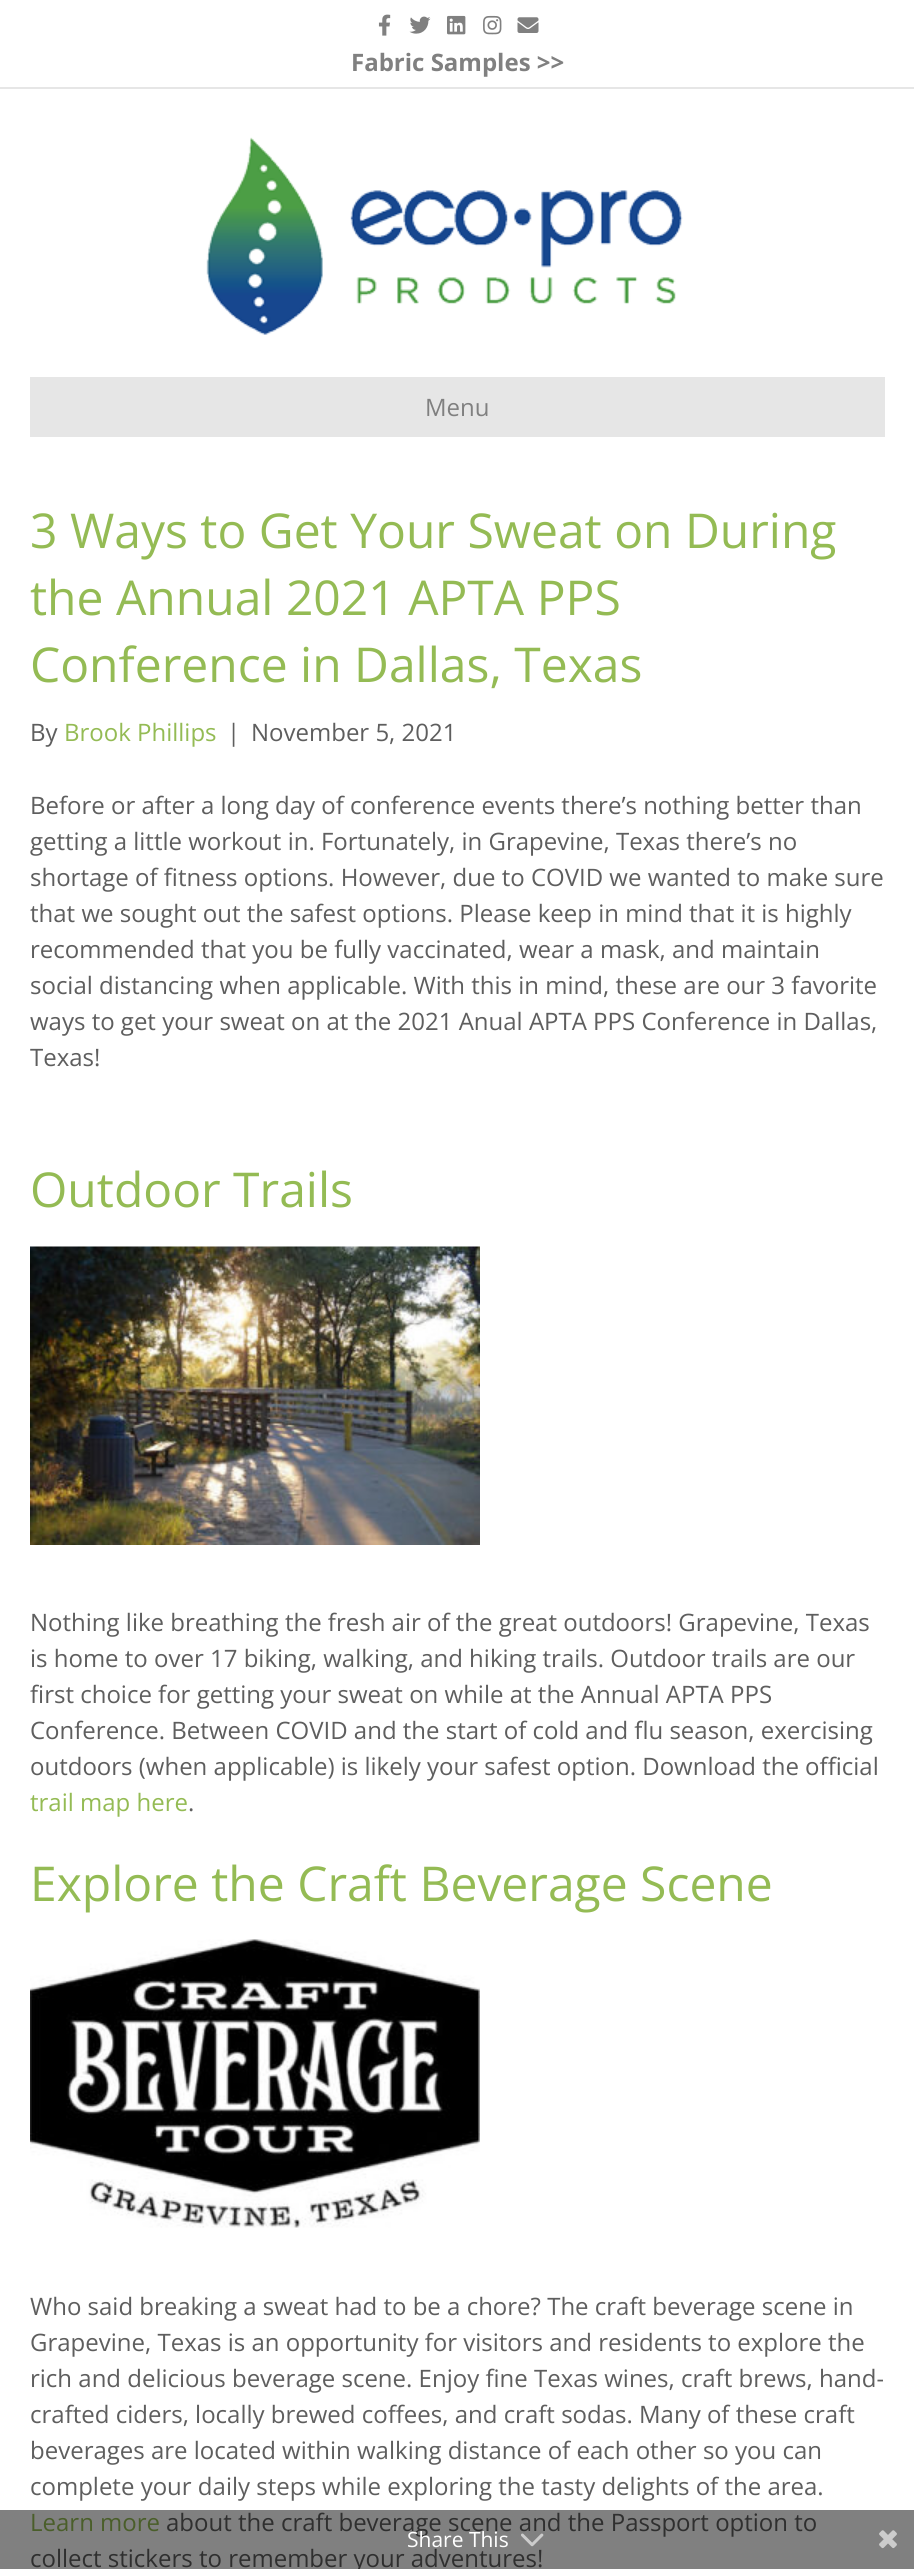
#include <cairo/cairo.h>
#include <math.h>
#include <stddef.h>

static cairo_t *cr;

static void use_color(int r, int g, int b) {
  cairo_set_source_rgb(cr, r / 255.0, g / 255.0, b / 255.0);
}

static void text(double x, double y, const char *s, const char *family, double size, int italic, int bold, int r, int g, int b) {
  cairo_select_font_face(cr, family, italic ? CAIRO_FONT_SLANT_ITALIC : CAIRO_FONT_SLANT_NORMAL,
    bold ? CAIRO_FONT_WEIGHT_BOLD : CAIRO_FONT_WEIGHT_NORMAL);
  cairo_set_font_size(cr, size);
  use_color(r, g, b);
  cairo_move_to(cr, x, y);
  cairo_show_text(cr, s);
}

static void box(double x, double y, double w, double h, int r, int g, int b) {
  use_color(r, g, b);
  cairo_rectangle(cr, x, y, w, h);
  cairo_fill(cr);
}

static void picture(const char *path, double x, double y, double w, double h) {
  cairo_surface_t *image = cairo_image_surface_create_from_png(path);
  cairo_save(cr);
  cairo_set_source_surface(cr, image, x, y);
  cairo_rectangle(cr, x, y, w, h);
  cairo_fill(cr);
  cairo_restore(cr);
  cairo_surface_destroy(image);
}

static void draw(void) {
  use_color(255, 255, 255);
  cairo_paint(cr);
  box(0, 87, 914, 2, 230, 230, 230);
  picture("img_01.png", 378, 14, 13, 22);
  picture("img_02.png", 409, 16, 22, 18);
  picture("img_03.png", 447, 15, 19, 20);
  picture("img_04.png", 483, 15, 19, 20);
  picture("img_05.png", 517, 17, 22, 16);
  picture("img_06.png", 206, 137, 477, 198);
  box(30, 377, 855, 60, 230, 230, 230);
  box(0, 2510, 914, 59, 128, 128, 128);
  picture("img_07.png", 30, 1246, 450, 299);
  picture("img_08.png", 30, 1939, 450, 289);
  picture("img_10.png", 879, 2530, 18, 19);
  text(351, 71, "Fabric Samples >>", "Open Sans", 24, 0, 1, 128, 128, 128);
  text(425, 416, "Menu", "Open Sans", 24, 0, 0, 128, 128, 128);
  text(30, 548, "3 Ways to Get Your Sweat on During", "Open Sans", 48, 0, 0, 148, 187, 84);
  text(30, 615, "the Annual 2021 APTA PPS", "Open Sans", 48, 0, 0, 148, 187, 84);
  text(30, 682, "Conference in Dallas, Texas", "Open Sans", 48, 0, 0, 148, 187, 84);
  text(30, 741, "By", "Open Sans", 24, 0, 0, 94, 94, 94);
  text(64, 741, "Brook Phillips", "Open Sans", 24, 0, 0, 148, 187, 84);
  text(227, 741, "|", "Open Sans", 24, 0, 0, 94, 94, 94);
  text(251, 741, "November 5, 2021", "Open Sans", 24, 0, 0, 94, 94, 94);
  text(30, 814, "Before or after a long day of conference events there’s nothing better than", "Open Sans", 24, 0, 0, 94, 94, 94);
  text(30, 850, "getting a little workout in. Fortunately, in Grapevine, Texas there’s no", "Open Sans", 24, 0, 0, 94, 94, 94);
  text(30, 886, "shortage of fitness options. However, due to COVID we wanted to make sure", "Open Sans", 24, 0, 0, 94, 94, 94);
  text(30, 922, "that we sought out the safest options. Please keep in mind that it is highly", "Open Sans", 24, 0, 0, 94, 94, 94);
  text(30, 958, "recommended that you be fully vaccinated, wear a mask, and maintain", "Open Sans", 24, 0, 0, 94, 94, 94);
  text(30, 994, "social distancing when applicable. With this in mind, these are our 3 favorite", "Open Sans", 24, 0, 0, 94, 94, 94);
  text(30, 1030, "ways to get your sweat on at the 2021 Anual APTA PPS Conference in Dallas,", "Open Sans", 24, 0, 0, 94, 94, 94);
  text(30, 1066, "Texas!", "Open Sans", 24, 0, 0, 94, 94, 94);
  text(30, 1207, "Outdoor Trails", "Open Sans", 48, 0, 0, 148, 187, 84);
  text(30, 1631, "Nothing like breathing the fresh air of the great outdoors! Grapevine, Texas", "Open Sans", 24, 0, 0, 94, 94, 94);
  text(30, 1667, "is home to over 17 biking, walking, and hiking trails. Outdoor trails are our", "Open Sans", 24, 0, 0, 94, 94, 94);
  text(30, 1703, "first choice for getting your sweat on while at the Annual APTA PPS", "Open Sans", 24, 0, 0, 94, 94, 94);
  text(30, 1739, "Conference. Between COVID and the start of cold and flu season, exercising", "Open Sans", 24, 0, 0, 94, 94, 94);
  text(30, 1775, "outdoors (when applicable) is likely your safest option. Download the official", "Open Sans", 24, 0, 0, 94, 94, 94);
  text(30, 1811, "trail map here", "Open Sans", 24, 0, 0, 148, 187, 84);
  text(188, 1811, ".", "Open Sans", 24, 0, 0, 94, 94, 94);
  text(30, 1901, "Explore the Craft Beverage Scene", "Open Sans", 48, 0, 0, 148, 187, 84);
  text(30, 2315, "Who said breaking a sweat had to be a chore? The craft beverage scene in", "Open Sans", 24, 0, 0, 94, 94, 94);
  text(30, 2351, "Grapevine, Texas is an opportunity for visitors and residents to explore the", "Open Sans", 24, 0, 0, 94, 94, 94);
  text(30, 2387, "rich and delicious beverage scene. Enjoy fine Texas wines, craft brews, hand-", "Open Sans", 24, 0, 0, 94, 94, 94);
  text(30, 2423, "crafted ciders, locally brewed coffees, and craft sodas. Many of these craft", "Open Sans", 24, 0, 0, 94, 94, 94);
  text(30, 2459, "beverages are located within walking distance of each other so you can", "Open Sans", 24, 0, 0, 94, 94, 94);
  text(30, 2495, "complete your daily steps while exploring the tasty delights of the area.", "Open Sans", 24, 0, 0, 94, 94, 94);
  text(30, 2531, "Learn more", "Open Sans", 24, 0, 0, 74, 94, 42);
  text(166, 2531, "about the craft beverage scene and the Passport option to", "Open Sans", 24, 0, 0, 47, 47, 47);
  text(30, 2567, "collect stickers to remember your adventures!", "Open Sans", 24, 0, 0, 47, 47, 47);
  text(407, 2547, "Share This", "Open Sans", 21, 0, 0, 255, 255, 255);
  picture("img_09.png", 521, 2533, 23, 14);
}

int main(void) {
  cairo_surface_t *surface = cairo_image_surface_create(CAIRO_FORMAT_RGB24, 914, 2569);
  cr = cairo_create(surface);
  cairo_font_options_t *options = cairo_font_options_create();
  cairo_font_options_set_hint_metrics(options, CAIRO_HINT_METRICS_OFF);
  cairo_font_options_set_hint_style(options, CAIRO_HINT_STYLE_NONE);
  cairo_set_font_options(cr, options);
  cairo_set_miter_limit(cr, 4);
  draw();
  cairo_surface_write_to_png(surface, "out.png");
  cairo_font_options_destroy(options);
  cairo_destroy(cr);
  cairo_surface_destroy(surface);
  return 0;
}
